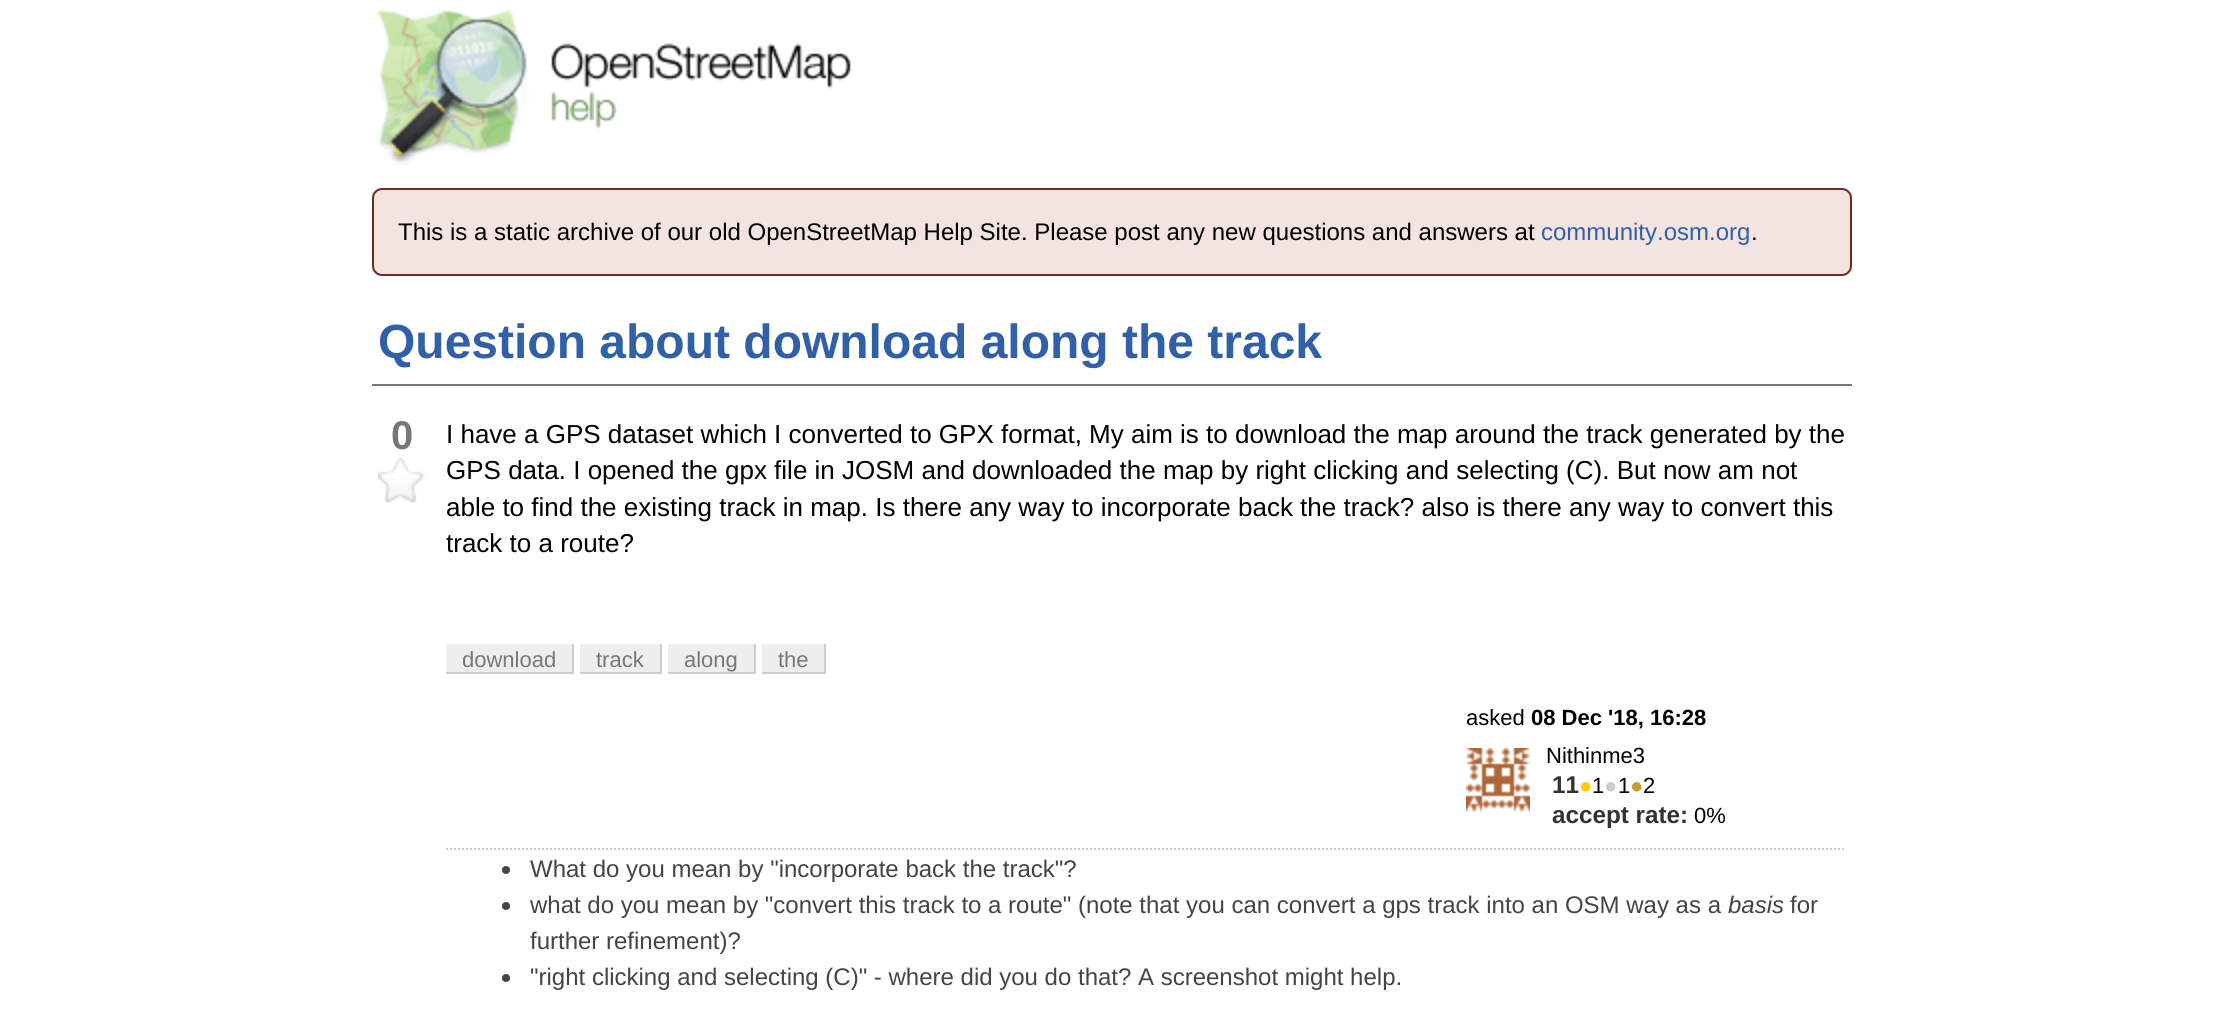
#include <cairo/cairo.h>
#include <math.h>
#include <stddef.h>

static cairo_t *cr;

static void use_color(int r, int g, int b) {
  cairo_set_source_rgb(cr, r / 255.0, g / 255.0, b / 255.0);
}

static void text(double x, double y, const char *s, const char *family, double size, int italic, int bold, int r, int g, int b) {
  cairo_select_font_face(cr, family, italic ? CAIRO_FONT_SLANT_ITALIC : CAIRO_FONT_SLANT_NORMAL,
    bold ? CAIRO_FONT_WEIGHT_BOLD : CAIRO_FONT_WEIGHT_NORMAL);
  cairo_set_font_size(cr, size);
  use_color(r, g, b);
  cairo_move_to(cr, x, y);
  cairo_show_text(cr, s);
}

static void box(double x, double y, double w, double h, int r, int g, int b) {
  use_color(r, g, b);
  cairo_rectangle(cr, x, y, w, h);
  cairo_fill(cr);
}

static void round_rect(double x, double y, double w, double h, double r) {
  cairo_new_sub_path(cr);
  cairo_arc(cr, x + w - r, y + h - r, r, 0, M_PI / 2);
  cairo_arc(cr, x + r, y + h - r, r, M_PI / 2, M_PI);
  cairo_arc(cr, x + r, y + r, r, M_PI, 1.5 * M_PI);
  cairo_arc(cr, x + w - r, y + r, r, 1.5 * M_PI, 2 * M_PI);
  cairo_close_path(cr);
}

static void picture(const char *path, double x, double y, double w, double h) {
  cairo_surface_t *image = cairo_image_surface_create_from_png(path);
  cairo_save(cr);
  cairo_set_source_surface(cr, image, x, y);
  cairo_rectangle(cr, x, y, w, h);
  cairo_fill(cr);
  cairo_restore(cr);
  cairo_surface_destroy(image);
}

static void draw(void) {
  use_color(255, 255, 255);
  cairo_paint(cr);
  picture("img_01.png", 377, 10, 474, 155);
  use_color(243, 227, 225);
  round_rect(373, 189, 1478, 86, 9);
  cairo_fill_preserve(cr);
  use_color(107, 43, 40);
  cairo_stroke(cr);
  box(372, 384, 1480, 2, 119, 119, 119);
  picture("img_02.png", 378, 458, 47, 45);
  box(446, 644, 126, 28, 238, 238, 238);
  box(572, 644, 2, 30, 204, 204, 204);
  box(446, 672, 128, 2, 204, 204, 204);
  box(580, 644, 80, 28, 238, 238, 238);
  box(660, 644, 2, 30, 204, 204, 204);
  box(580, 672, 82, 2, 204, 204, 204);
  box(668, 644, 86, 28, 238, 238, 238);
  box(754, 644, 2, 30, 204, 204, 204);
  box(668, 672, 88, 2, 204, 204, 204);
  box(762, 644, 62, 28, 238, 238, 238);
  box(824, 644, 2, 30, 204, 204, 204);
  box(762, 672, 64, 2, 204, 204, 204);
  picture("img_03.png", 1466, 748, 64, 64);
  cairo_new_path(cr);
  cairo_move_to(cr, 446, 849);
  cairo_line_to(cr, 1846, 849);
  use_color(204, 204, 206);
  cairo_set_dash(cr, (double[]){2, 2}, 2, 0);
  cairo_stroke(cr);
  use_color(68, 68, 68);
  cairo_arc(cr, 506, 870, 4, 0, 2 * M_PI);
  cairo_fill(cr);
  cairo_arc(cr, 506, 906, 4, 0, 2 * M_PI);
  cairo_fill(cr);
  cairo_arc(cr, 506, 978, 4, 0, 2 * M_PI);
  cairo_fill(cr);
  text(398, 240, "This is a static archive of our old OpenStreetMap Help Site. Please post any new questions and answers at", "Liberation Sans", 24, 0, 0, 0, 0, 0);
  text(1541, 240, "community.osm.org", "Liberation Sans", 24, 0, 0, 48, 96, 168);
  text(1751, 240, ".", "Liberation Sans", 24, 0, 0, 0, 0, 0);
  text(378, 358, "Question about download along the track", "Liberation Sans", 48, 0, 1, 48, 96, 168);
  text(391, 449, "0", "Liberation Sans", 40, 0, 1, 119, 119, 119);
  text(446, 443, "I have a GPS dataset which I converted to GPX format, My aim is to download the map around the track generated by the", "Liberation Sans", 26, 0, 0, 0, 0, 0);
  text(446, 479, "GPS data. I opened the gpx file in JOSM and downloaded the map by right clicking and selecting (C). But now am not", "Liberation Sans", 26, 0, 0, 0, 0, 0);
  text(446, 516, "able to find the existing track in map. Is there any way to incorporate back the track? also is there any way to convert this", "Liberation Sans", 26, 0, 0, 0, 0, 0);
  text(446, 552, "track to a route?", "Liberation Sans", 26, 0, 0, 0, 0, 0);
  text(462, 667, "download", "Liberation Sans", 22, 0, 0, 119, 119, 119);
  text(596, 667, "track", "Liberation Sans", 22, 0, 0, 119, 119, 119);
  text(684, 667, "along", "Liberation Sans", 22, 0, 0, 119, 119, 119);
  text(778, 667, "the", "Liberation Sans", 22, 0, 0, 119, 119, 119);
  text(1466, 725, "asked", "Liberation Sans", 22, 0, 0, 0, 0, 0);
  text(1531, 725, "08 Dec '18, 16:28", "Liberation Sans", 22, 0, 1, 0, 0, 0);
  text(1546, 763, "Nithinme3", "Liberation Sans", 22, 0, 0, 0, 0, 0);
  text(1552, 793, "11", "Liberation Sans", 24.25, 0, 1, 51, 51, 51);
  text(1579, 793, "●", "Liberation Sans", 22, 0, 0, 255, 204, 0);
  text(1592, 793, "1", "Liberation Sans", 22, 0, 0, 0, 0, 0);
  text(1604, 793, "●", "Liberation Sans", 22, 0, 0, 204, 204, 204);
  text(1618, 793, "1", "Liberation Sans", 22, 0, 0, 0, 0, 0);
  text(1630, 793, "●", "Liberation Sans", 22, 0, 0, 204, 153, 51);
  text(1643, 793, "2", "Liberation Sans", 22, 0, 0, 0, 0, 0);
  text(1552, 823, "accept rate:", "Liberation Sans", 24.25, 0, 1, 51, 51, 51);
  text(1694, 823, "0%", "Liberation Sans", 22, 0, 0, 0, 0, 0);
  text(530, 877, "What do you mean by \"incorporate back the track\"?", "Liberation Sans", 24, 0, 0, 68, 68, 68);
  text(530, 913, "what do you mean by \"convert this track to a route\" (note that you can convert a gps track into an OSM way as a", "Liberation Sans", 24, 0, 0, 68, 68, 68);
  text(1728, 913, "basis", "Liberation Sans", 24, 1, 0, 68, 68, 68);
  text(1790, 913, "for", "Liberation Sans", 24, 0, 0, 68, 68, 68);
  text(530, 949, "further refinement)?", "Liberation Sans", 24, 0, 0, 68, 68, 68);
  text(530, 985, "\"right clicking and selecting (C)\" - where did you do that? A screenshot might help.", "Liberation Sans", 24, 0, 0, 68, 68, 68);
}

int main(void) {
  cairo_surface_t *surface = cairo_image_surface_create(CAIRO_FORMAT_RGB24, 2224, 1016);
  cr = cairo_create(surface);
  cairo_font_options_t *options = cairo_font_options_create();
  cairo_font_options_set_hint_metrics(options, CAIRO_HINT_METRICS_OFF);
  cairo_font_options_set_hint_style(options, CAIRO_HINT_STYLE_NONE);
  cairo_set_font_options(cr, options);
  cairo_set_miter_limit(cr, 4);
  draw();
  cairo_surface_write_to_png(surface, "out.png");
  cairo_font_options_destroy(options);
  cairo_destroy(cr);
  cairo_surface_destroy(surface);
  return 0;
}
